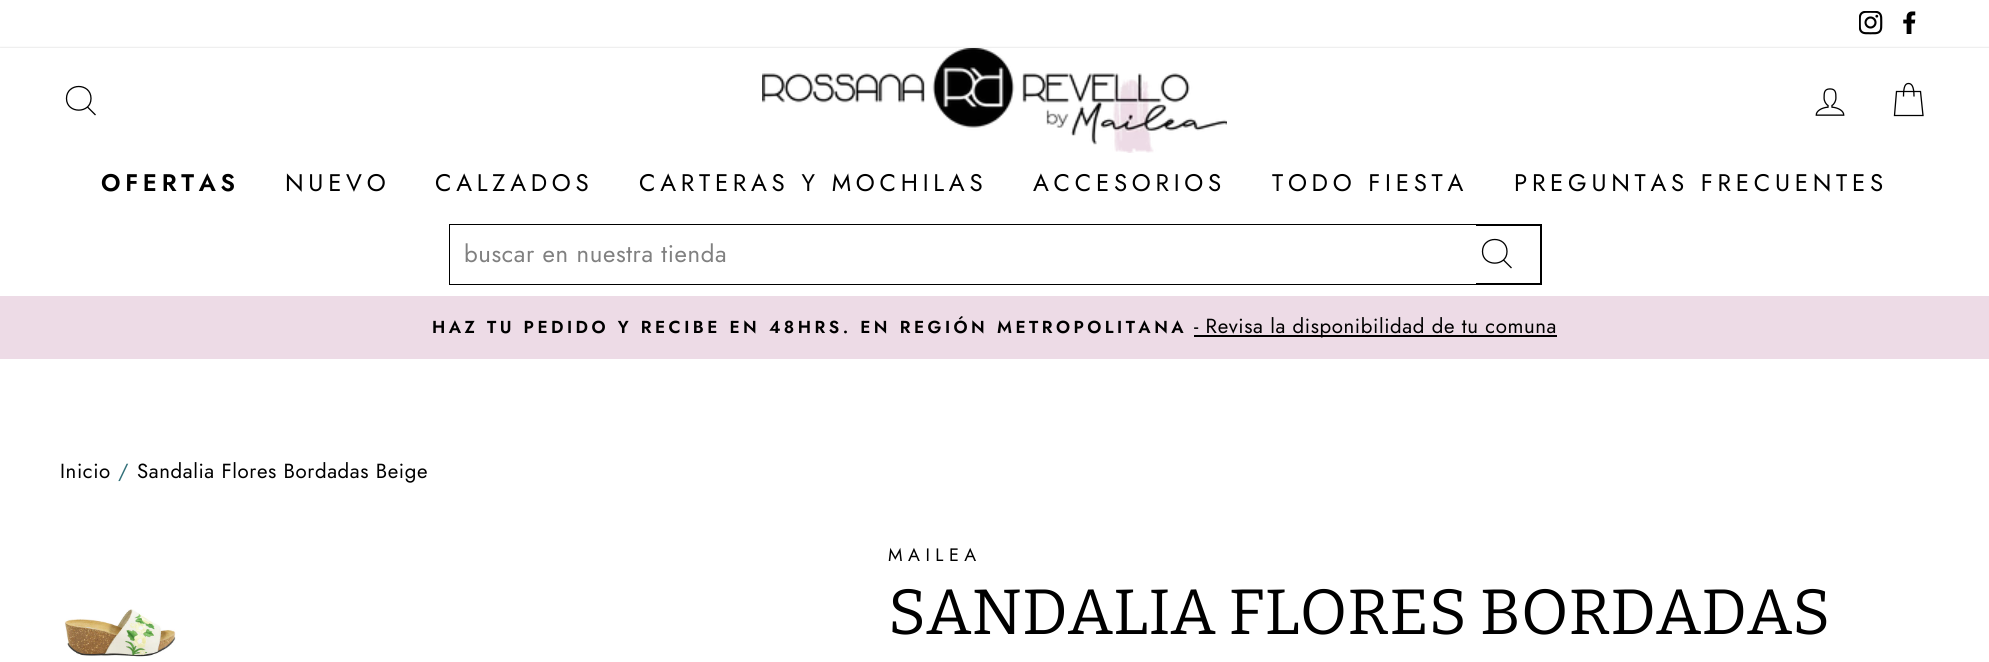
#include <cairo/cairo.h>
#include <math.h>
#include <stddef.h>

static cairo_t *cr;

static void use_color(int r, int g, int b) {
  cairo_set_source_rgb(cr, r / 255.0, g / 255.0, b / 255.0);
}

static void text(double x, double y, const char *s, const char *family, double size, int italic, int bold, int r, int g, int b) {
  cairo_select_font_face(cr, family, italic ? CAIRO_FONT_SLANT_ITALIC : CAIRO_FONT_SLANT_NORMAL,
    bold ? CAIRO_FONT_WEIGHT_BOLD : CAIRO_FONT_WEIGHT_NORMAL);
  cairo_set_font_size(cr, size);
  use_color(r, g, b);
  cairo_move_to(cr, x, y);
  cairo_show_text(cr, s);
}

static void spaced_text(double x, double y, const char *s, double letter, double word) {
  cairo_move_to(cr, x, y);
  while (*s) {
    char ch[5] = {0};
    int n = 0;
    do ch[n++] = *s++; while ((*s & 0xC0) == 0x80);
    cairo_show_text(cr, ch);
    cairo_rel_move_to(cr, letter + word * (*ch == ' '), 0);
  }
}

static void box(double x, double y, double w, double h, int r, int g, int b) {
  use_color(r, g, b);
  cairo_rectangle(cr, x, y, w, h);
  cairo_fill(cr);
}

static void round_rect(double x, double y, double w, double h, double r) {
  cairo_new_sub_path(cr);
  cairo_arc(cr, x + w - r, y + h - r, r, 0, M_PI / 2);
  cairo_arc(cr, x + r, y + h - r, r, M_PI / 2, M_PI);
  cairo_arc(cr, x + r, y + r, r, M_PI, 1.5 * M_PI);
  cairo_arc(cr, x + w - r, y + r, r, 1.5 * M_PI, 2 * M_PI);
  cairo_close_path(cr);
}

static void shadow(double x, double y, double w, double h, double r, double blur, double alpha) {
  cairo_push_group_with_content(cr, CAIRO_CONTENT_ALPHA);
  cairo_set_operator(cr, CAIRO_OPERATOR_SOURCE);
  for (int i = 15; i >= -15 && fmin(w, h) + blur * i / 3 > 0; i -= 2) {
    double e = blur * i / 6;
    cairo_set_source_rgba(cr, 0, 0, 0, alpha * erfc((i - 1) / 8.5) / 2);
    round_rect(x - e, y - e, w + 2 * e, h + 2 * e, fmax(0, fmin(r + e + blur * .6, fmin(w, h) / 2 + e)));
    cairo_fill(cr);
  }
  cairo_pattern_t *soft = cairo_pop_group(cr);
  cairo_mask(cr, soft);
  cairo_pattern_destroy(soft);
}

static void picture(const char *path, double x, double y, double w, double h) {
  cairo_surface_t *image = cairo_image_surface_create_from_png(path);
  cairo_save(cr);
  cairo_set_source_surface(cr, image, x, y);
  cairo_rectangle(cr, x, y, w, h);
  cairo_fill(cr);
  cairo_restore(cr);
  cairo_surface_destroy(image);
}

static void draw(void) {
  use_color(255, 255, 255);
  cairo_paint(cr);
  picture("img_01.png", 1859, 11, 24, 24);
  picture("img_02.png", 1903, 11, 13, 23);
  use_color(0, 0, 0);
  shadow(0, 48, 1989, 248, 0, 1, 0.2);
  box(0, 48, 1989, 248, 255, 255, 255);
  cairo_new_path(cr);
  cairo_move_to(cr, 91, 98.5);
  cairo_curve_to(cr, 91, 114, 66.5, 114, 66.5, 98.5);
  cairo_curve_to(cr, 66.5, 82.5, 91, 82.5, 91, 98.5);
  cairo_close_path(cr);
  cairo_move_to(cr, 95.5, 115);
  cairo_line_to(cr, 87.5, 107);
  use_color(0, 0, 0);
  cairo_set_line_width(cr, 1.3);
  cairo_stroke(cr);
  picture("img_03.png", 762, 48, 465, 105);
  picture("img_04.png", 1815, 88, 30, 28);
  cairo_new_path(cr);
  cairo_move_to(cr, 1903.5, 96.5);
  cairo_curve_to(cr, 1903.5, 86, 1905.5, 83.5, 1908.5, 83.5);
  cairo_curve_to(cr, 1911.5, 83.5, 1914, 86, 1914, 96.5);
  cairo_move_to(cr, 1896.5, 91.5);
  cairo_line_to(cr, 1920.5, 91.5);
  cairo_line_to(cr, 1923, 115.5);
  cairo_line_to(cr, 1894.5, 115.5);
  cairo_close_path(cr);
  cairo_stroke(cr);
  cairo_rectangle(cr, 450, 225, 1091, 59);
  cairo_set_line_width(cr, 2);
  cairo_stroke(cr);
  box(450, 225, 1026, 59, 255, 255, 255);
  cairo_new_path(cr);
  cairo_move_to(cr, 1507, 251.5);
  cairo_curve_to(cr, 1507, 267, 1482.5, 267, 1482.5, 251.5);
  cairo_curve_to(cr, 1482.5, 235.5, 1507, 235.5, 1507, 251.5);
  cairo_close_path(cr);
  cairo_move_to(cr, 1511.5, 268);
  cairo_line_to(cr, 1503.5, 260);
  use_color(0, 0, 0);
  cairo_set_line_width(cr, 1.3);
  cairo_stroke(cr);
  box(0, 296, 1989, 63, 237, 219, 230);
  box(1194, 335, 363, 2, 0, 0, 0);
  picture("img_05.png", 64, 609, 112, 48);
  cairo_select_font_face(cr, "Jost SemiBold", CAIRO_FONT_SLANT_NORMAL, CAIRO_FONT_WEIGHT_NORMAL);
  cairo_set_font_size(cr, 24);
  spaced_text(101, 191, "OFERTAS", 4.75, 0);
  cairo_select_font_face(cr, "Jost", CAIRO_FONT_SLANT_NORMAL, CAIRO_FONT_WEIGHT_NORMAL);
  spaced_text(285, 191, "NUEVO", 4.75, 0);
  spaced_text(435, 191, "CALZADOS", 4.75, 0);
  spaced_text(639, 191, "CARTERAS Y MOCHILAS", 4.75, 0);
  spaced_text(1033, 191, "ACCESORIOS", 4.75, 0);
  spaced_text(1272, 191, "TODO FIESTA", 4.75, 0);
  spaced_text(1514, 191, "PREGUNTAS FRECUENTES", 4.75, 0);
  use_color(128, 128, 128);
  spaced_text(464, 262, "buscar en nuestra tienda", 0.6, 0);
  cairo_select_font_face(cr, "Jost SemiBold", CAIRO_FONT_SLANT_NORMAL, CAIRO_FONT_WEIGHT_NORMAL);
  cairo_set_font_size(cr, 17.35);
  use_color(0, 0, 0);
  spaced_text(432, 333, "HAZ TU PEDIDO Y RECIBE EN 48HRS. EN REGIÓN METROPOLITANA", 3.47, 0);
  cairo_select_font_face(cr, "Jost", CAIRO_FONT_SLANT_NORMAL, CAIRO_FONT_WEIGHT_NORMAL);
  cairo_set_font_size(cr, 20.4);
  spaced_text(1194, 333, "- Revisa la disponibilidad de tu comuna", 0.6, 0);
  spaced_text(60, 478, "Inicio", 0.6, 0);
  use_color(51, 113, 122);
  spaced_text(118, 478, "/", 0.6, 0);
  use_color(0, 0, 0);
  spaced_text(137, 478, "Sandalia Flores Bordadas Beige", 0.6, 0);
  cairo_set_font_size(cr, 18);
  spaced_text(888, 561, "MAILEA", 5.5, 0);
  text(888, 634, "SANDALIA FLORES BORDADAS", "Bitter", 63.75, 0, 0, 0, 0, 0);
}

int main(void) {
  cairo_surface_t *surface = cairo_image_surface_create(CAIRO_FORMAT_RGB24, 1989, 662);
  cr = cairo_create(surface);
  cairo_font_options_t *options = cairo_font_options_create();
  cairo_font_options_set_hint_metrics(options, CAIRO_HINT_METRICS_OFF);
  cairo_font_options_set_hint_style(options, CAIRO_HINT_STYLE_NONE);
  cairo_set_font_options(cr, options);
  cairo_set_miter_limit(cr, 4);
  draw();
  cairo_surface_write_to_png(surface, "out.png");
  cairo_font_options_destroy(options);
  cairo_destroy(cr);
  cairo_surface_destroy(surface);
  return 0;
}
